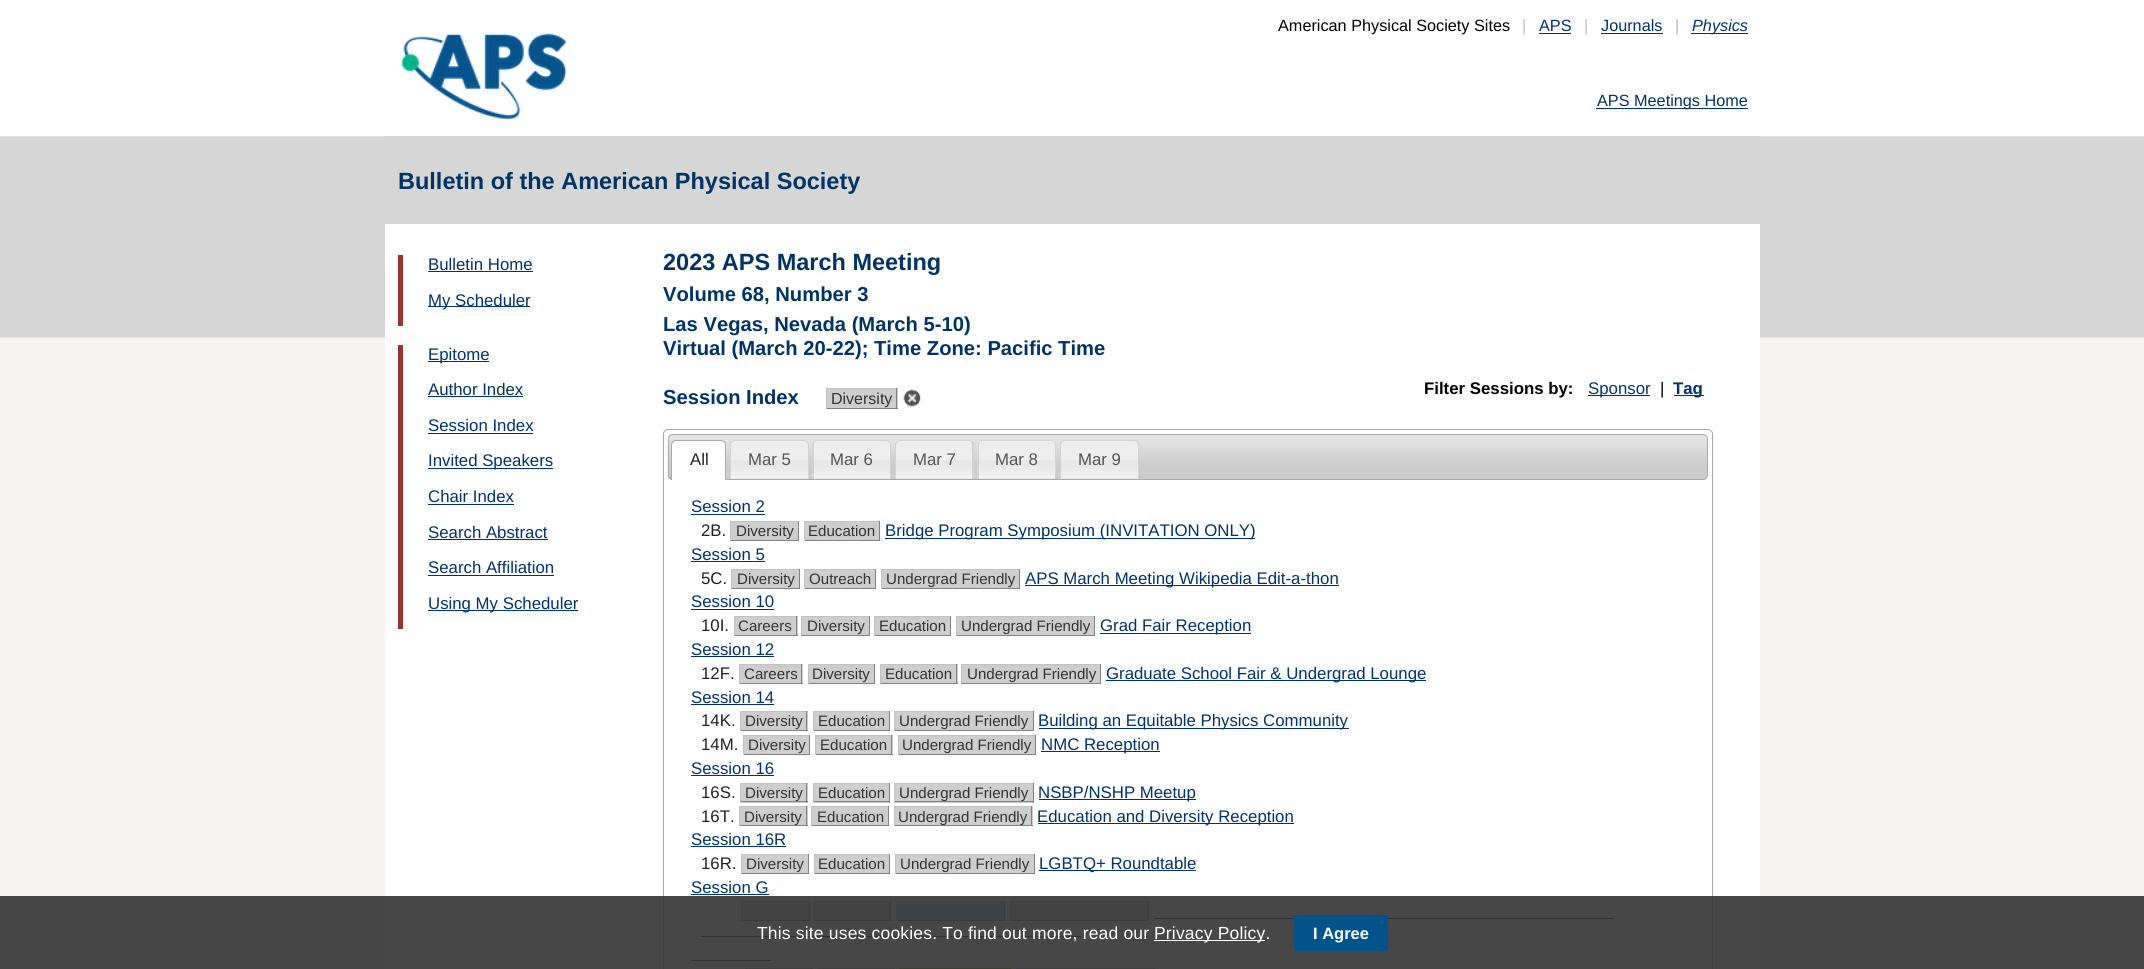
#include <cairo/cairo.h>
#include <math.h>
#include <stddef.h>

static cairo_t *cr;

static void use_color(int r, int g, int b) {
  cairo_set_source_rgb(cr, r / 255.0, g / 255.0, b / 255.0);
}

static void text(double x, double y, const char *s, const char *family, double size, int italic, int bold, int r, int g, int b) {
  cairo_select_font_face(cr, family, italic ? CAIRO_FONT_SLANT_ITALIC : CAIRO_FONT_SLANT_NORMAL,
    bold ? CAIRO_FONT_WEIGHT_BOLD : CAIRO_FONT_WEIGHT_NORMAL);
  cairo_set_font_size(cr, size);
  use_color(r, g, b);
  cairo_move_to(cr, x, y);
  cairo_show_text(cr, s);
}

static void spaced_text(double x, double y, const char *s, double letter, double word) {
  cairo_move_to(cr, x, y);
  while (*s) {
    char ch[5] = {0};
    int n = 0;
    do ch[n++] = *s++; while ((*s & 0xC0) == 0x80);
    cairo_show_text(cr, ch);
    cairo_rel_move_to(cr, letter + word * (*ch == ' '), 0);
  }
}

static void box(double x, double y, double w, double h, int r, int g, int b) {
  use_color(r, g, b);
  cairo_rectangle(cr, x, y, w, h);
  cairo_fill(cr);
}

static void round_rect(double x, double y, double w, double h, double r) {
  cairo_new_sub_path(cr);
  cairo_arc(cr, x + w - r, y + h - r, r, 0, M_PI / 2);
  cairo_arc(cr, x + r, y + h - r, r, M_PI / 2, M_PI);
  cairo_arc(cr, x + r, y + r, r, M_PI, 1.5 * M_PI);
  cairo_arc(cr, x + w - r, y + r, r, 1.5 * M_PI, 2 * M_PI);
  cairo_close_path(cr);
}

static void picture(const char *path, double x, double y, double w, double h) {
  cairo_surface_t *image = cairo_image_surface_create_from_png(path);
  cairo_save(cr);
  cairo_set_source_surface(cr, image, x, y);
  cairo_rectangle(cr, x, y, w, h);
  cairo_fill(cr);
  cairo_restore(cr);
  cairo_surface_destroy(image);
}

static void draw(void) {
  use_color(246, 244, 242);
  cairo_paint(cr);
  picture("img_01.png", 0, 0, 2144, 338);
  box(385, 136, 1375, 833, 255, 255, 255);
  box(1539, 33, 32, 1, 0, 51, 102);
  box(1601, 33, 62, 1, 0, 51, 102);
  box(1691, 33, 57, 1, 0, 51, 102);
  picture("img_02.png", 401, 33, 166, 88);
  box(1596, 108, 152, 1, 0, 51, 102);
  box(385, 136, 1375, 88, 214, 214, 214);
  box(398, 255, 5, 71, 153, 51, 51);
  box(428, 271, 105, 1, 0, 51, 102);
  box(428, 306, 102, 1, 0, 51, 102);
  box(398, 345, 5, 284, 153, 51, 51);
  box(428, 361, 61, 1, 0, 51, 102);
  box(428, 396, 95, 1, 0, 51, 102);
  box(428, 433, 105, 1, 0, 51, 102);
  box(428, 468, 125, 1, 0, 51, 102);
  box(428, 504, 86, 1, 0, 51, 102);
  box(428, 539, 120, 1, 0, 51, 102);
  box(428, 575, 126, 1, 0, 51, 102);
  box(428, 610, 150, 1, 0, 51, 102);
  box(827, 389, 71, 19, 206, 206, 206);
  box(826, 388, 72, 1, 194, 194, 194);
  box(896, 388, 1, 21, 129, 129, 129);
  box(826, 408, 72, 1, 129, 129, 129);
  box(826, 388, 1, 21, 194, 194, 194);
  picture("img_03.png", 903, 389, 18, 19);
  box(1588, 395, 62, 1, 0, 51, 102);
  box(1674, 395, 30, 1, 0, 51, 102);
  round_rect(663.5, 429.5, 1049, 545, 4.5);
  use_color(170, 170, 170);
  cairo_set_line_width(cr, 1);
  cairo_stroke(cr);
  picture("img_04.png", 667, 434, 1041, 46);
  round_rect(668.5, 434.5, 1039, 45, 4.5);
  cairo_stroke(cr);
  picture("img_05.png", 671, 440, 56, 40);
  cairo_set_fill_rule(cr, CAIRO_FILL_RULE_EVEN_ODD);
  cairo_new_path(cr);
  cairo_move_to(cr, 676, 440);
  cairo_line_to(cr, 721, 440);
  cairo_curve_to(cr, 724, 440, 726, 442, 726, 445);
  cairo_line_to(cr, 726, 480);
  cairo_line_to(cr, 671, 480);
  cairo_line_to(cr, 671, 445);
  cairo_curve_to(cr, 671, 442, 673, 440, 676, 440);
  cairo_close_path(cr);
  cairo_move_to(cr, 676, 441);
  cairo_line_to(cr, 721, 441);
  cairo_curve_to(cr, 723, 441, 725, 443, 725, 445);
  cairo_line_to(cr, 725, 480);
  cairo_line_to(cr, 672, 480);
  cairo_line_to(cr, 672, 445);
  cairo_curve_to(cr, 672, 443, 674, 441, 676, 441);
  cairo_close_path(cr);
  cairo_fill(cr);
  use_color(230, 230, 230);
  cairo_new_path(cr);
  cairo_move_to(cr, 735, 441);
  cairo_line_to(cr, 804, 441);
  cairo_curve_to(cr, 806, 441, 808, 443, 808, 445);
  cairo_line_to(cr, 808, 479);
  cairo_line_to(cr, 731, 479);
  cairo_line_to(cr, 731, 445);
  cairo_curve_to(cr, 731, 443, 733, 441, 735, 441);
  cairo_close_path(cr);
  cairo_fill(cr);
  picture("img_06.png", 730, 440, 79, 39);
  use_color(211, 211, 211);
  cairo_new_path(cr);
  cairo_move_to(cr, 735, 440);
  cairo_line_to(cr, 804, 440);
  cairo_curve_to(cr, 807, 440, 809, 442, 809, 445);
  cairo_line_to(cr, 809, 479);
  cairo_line_to(cr, 730, 479);
  cairo_line_to(cr, 730, 445);
  cairo_curve_to(cr, 730, 442, 732, 440, 735, 440);
  cairo_close_path(cr);
  cairo_move_to(cr, 735, 441);
  cairo_line_to(cr, 804, 441);
  cairo_curve_to(cr, 806, 441, 808, 443, 808, 445);
  cairo_line_to(cr, 808, 479);
  cairo_line_to(cr, 731, 479);
  cairo_line_to(cr, 731, 445);
  cairo_curve_to(cr, 731, 443, 733, 441, 735, 441);
  cairo_close_path(cr);
  cairo_fill(cr);
  use_color(230, 230, 230);
  cairo_new_path(cr);
  cairo_move_to(cr, 818, 441);
  cairo_line_to(cr, 886, 441);
  cairo_curve_to(cr, 888, 441, 890, 443, 890, 445);
  cairo_line_to(cr, 890, 479);
  cairo_line_to(cr, 814, 479);
  cairo_line_to(cr, 814, 445);
  cairo_curve_to(cr, 814, 443, 816, 441, 818, 441);
  cairo_close_path(cr);
  cairo_fill(cr);
  picture("img_07.png", 812, 440, 79, 39);
  use_color(211, 211, 211);
  cairo_new_path(cr);
  cairo_move_to(cr, 818, 440);
  cairo_line_to(cr, 886, 440);
  cairo_curve_to(cr, 889, 440, 891, 442, 891, 445);
  cairo_line_to(cr, 891, 479);
  cairo_line_to(cr, 812, 479);
  cairo_line_to(cr, 812, 445);
  cairo_curve_to(cr, 812, 442, 815, 440, 818, 440);
  cairo_close_path(cr);
  cairo_move_to(cr, 818, 441);
  cairo_line_to(cr, 886, 441);
  cairo_curve_to(cr, 888, 441, 890, 443, 890, 445);
  cairo_line_to(cr, 890, 479);
  cairo_line_to(cr, 814, 479);
  cairo_line_to(cr, 814, 445);
  cairo_curve_to(cr, 814, 443, 815, 441, 818, 441);
  cairo_close_path(cr);
  cairo_fill(cr);
  use_color(230, 230, 230);
  cairo_new_path(cr);
  cairo_move_to(cr, 900, 441);
  cairo_line_to(cr, 969, 441);
  cairo_curve_to(cr, 971, 441, 973, 443, 973, 445);
  cairo_line_to(cr, 973, 479);
  cairo_line_to(cr, 896, 479);
  cairo_line_to(cr, 896, 445);
  cairo_curve_to(cr, 896, 443, 898, 441, 900, 441);
  cairo_close_path(cr);
  cairo_fill(cr);
  picture("img_06.png", 895, 440, 79, 39);
  use_color(211, 211, 211);
  cairo_new_path(cr);
  cairo_move_to(cr, 900, 440);
  cairo_line_to(cr, 969, 440);
  cairo_curve_to(cr, 972, 440, 974, 442, 974, 445);
  cairo_line_to(cr, 974, 479);
  cairo_line_to(cr, 895, 479);
  cairo_line_to(cr, 895, 445);
  cairo_curve_to(cr, 895, 442, 897, 440, 900, 440);
  cairo_close_path(cr);
  cairo_move_to(cr, 900, 441);
  cairo_line_to(cr, 969, 441);
  cairo_curve_to(cr, 971, 441, 972, 443, 972, 445);
  cairo_line_to(cr, 972, 479);
  cairo_line_to(cr, 896, 479);
  cairo_line_to(cr, 896, 445);
  cairo_curve_to(cr, 896, 443, 898, 441, 900, 441);
  cairo_close_path(cr);
  cairo_fill(cr);
  use_color(230, 230, 230);
  cairo_new_path(cr);
  cairo_move_to(cr, 983, 441);
  cairo_line_to(cr, 1051, 441);
  cairo_curve_to(cr, 1053, 441, 1055, 443, 1055, 445);
  cairo_line_to(cr, 1055, 479);
  cairo_line_to(cr, 979, 479);
  cairo_line_to(cr, 979, 445);
  cairo_curve_to(cr, 979, 443, 981, 441, 983, 441);
  cairo_close_path(cr);
  cairo_fill(cr);
  picture("img_07.png", 977, 440, 79, 39);
  use_color(211, 211, 211);
  cairo_new_path(cr);
  cairo_move_to(cr, 982, 440);
  cairo_line_to(cr, 1051, 440);
  cairo_curve_to(cr, 1054, 440, 1056, 442, 1056, 445);
  cairo_line_to(cr, 1056, 479);
  cairo_line_to(cr, 978, 479);
  cairo_line_to(cr, 978, 445);
  cairo_curve_to(cr, 978, 442, 980, 440, 982, 440);
  cairo_close_path(cr);
  cairo_move_to(cr, 982, 441);
  cairo_line_to(cr, 1051, 441);
  cairo_curve_to(cr, 1053, 441, 1055, 443, 1055, 445);
  cairo_line_to(cr, 1055, 479);
  cairo_line_to(cr, 979, 479);
  cairo_line_to(cr, 979, 445);
  cairo_curve_to(cr, 979, 443, 980, 441, 982, 441);
  cairo_close_path(cr);
  cairo_fill(cr);
  use_color(230, 230, 230);
  cairo_new_path(cr);
  cairo_move_to(cr, 1065, 441);
  cairo_line_to(cr, 1134, 441);
  cairo_curve_to(cr, 1136, 441, 1138, 443, 1138, 445);
  cairo_line_to(cr, 1138, 479);
  cairo_line_to(cr, 1061, 479);
  cairo_line_to(cr, 1061, 445);
  cairo_curve_to(cr, 1061, 443, 1063, 441, 1065, 441);
  cairo_close_path(cr);
  cairo_fill(cr);
  picture("img_06.png", 1060, 440, 79, 39);
  use_color(211, 211, 211);
  cairo_new_path(cr);
  cairo_move_to(cr, 1065, 440);
  cairo_line_to(cr, 1134, 440);
  cairo_curve_to(cr, 1137, 440, 1139, 442, 1139, 445);
  cairo_line_to(cr, 1139, 479);
  cairo_line_to(cr, 1060, 479);
  cairo_line_to(cr, 1060, 445);
  cairo_curve_to(cr, 1060, 442, 1062, 440, 1065, 440);
  cairo_close_path(cr);
  cairo_move_to(cr, 1065, 441);
  cairo_line_to(cr, 1134, 441);
  cairo_curve_to(cr, 1136, 441, 1138, 443, 1138, 445);
  cairo_line_to(cr, 1138, 479);
  cairo_line_to(cr, 1061, 479);
  cairo_line_to(cr, 1061, 445);
  cairo_curve_to(cr, 1061, 443, 1063, 441, 1065, 441);
  cairo_close_path(cr);
  cairo_fill(cr);
  box(691, 514, 74, 1, 0, 51, 102);
  box(731, 522, 67, 18, 206, 206, 206);
  box(730, 521, 69, 1, 194, 194, 194);
  box(798, 521, 1, 20, 129, 129, 129);
  box(730, 540, 69, 1, 129, 129, 129);
  box(730, 521, 1, 20, 194, 194, 194);
  box(805, 522, 74, 18, 206, 206, 206);
  box(804, 521, 76, 1, 194, 194, 194);
  box(879, 521, 1, 20, 129, 129, 129);
  box(804, 540, 76, 1, 129, 129, 129);
  box(804, 521, 1, 20, 194, 194, 194);
  box(885, 538, 370, 1, 0, 51, 102);
  box(691, 561, 74, 1, 0, 51, 102);
  box(732, 570, 67, 18, 206, 206, 206);
  box(731, 569, 69, 1, 194, 194, 194);
  box(799, 569, 1, 20, 129, 129, 129);
  box(731, 588, 69, 1, 129, 129, 129);
  box(731, 569, 1, 20, 194, 194, 194);
  box(805, 570, 70, 18, 206, 206, 206);
  box(804, 569, 72, 1, 194, 194, 194);
  box(875, 569, 1, 20, 129, 129, 129);
  box(804, 588, 72, 1, 129, 129, 129);
  box(804, 569, 1, 20, 194, 194, 194);
  box(882, 570, 137, 18, 206, 206, 206);
  box(881, 569, 139, 1, 194, 194, 194);
  box(1019, 569, 1, 20, 129, 129, 129);
  box(881, 588, 139, 1, 129, 129, 129);
  box(881, 569, 1, 20, 194, 194, 194);
  box(1025, 585, 314, 1, 0, 51, 102);
  box(691, 609, 83, 1, 0, 51, 102);
  box(735, 617, 63, 18, 206, 206, 206);
  box(734, 616, 64, 1, 194, 194, 194);
  box(796, 616, 1, 20, 129, 129, 129);
  box(734, 635, 64, 1, 129, 129, 129);
  box(734, 616, 1, 20, 194, 194, 194);
  box(802, 617, 67, 18, 206, 206, 206);
  box(801, 616, 69, 1, 194, 194, 194);
  box(869, 616, 1, 20, 129, 129, 129);
  box(801, 635, 69, 1, 129, 129, 129);
  box(801, 616, 1, 20, 194, 194, 194);
  box(875, 617, 75, 18, 206, 206, 206);
  box(874, 616, 77, 1, 194, 194, 194);
  box(950, 616, 1, 20, 129, 129, 129);
  box(874, 635, 77, 1, 129, 129, 129);
  box(874, 616, 1, 20, 194, 194, 194);
  box(957, 617, 137, 18, 206, 206, 206);
  box(956, 616, 139, 1, 194, 194, 194);
  box(1094, 616, 1, 20, 129, 129, 129);
  box(956, 635, 139, 1, 129, 129, 129);
  box(956, 616, 1, 20, 194, 194, 194);
  box(1100, 633, 151, 1, 0, 51, 102);
  box(691, 656, 83, 1, 0, 51, 102);
  box(740, 665, 63, 18, 206, 206, 206);
  box(739, 664, 64, 1, 194, 194, 194);
  box(801, 664, 1, 20, 129, 129, 129);
  box(739, 683, 64, 1, 129, 129, 129);
  box(739, 664, 1, 20, 194, 194, 194);
  box(809, 665, 65, 18, 206, 206, 206);
  box(808, 664, 67, 1, 194, 194, 194);
  box(874, 664, 1, 20, 129, 129, 129);
  box(808, 683, 67, 1, 129, 129, 129);
  box(808, 664, 1, 20, 194, 194, 194);
  box(881, 665, 77, 18, 206, 206, 206);
  box(880, 664, 78, 1, 194, 194, 194);
  box(956, 664, 1, 20, 129, 129, 129);
  box(880, 683, 78, 1, 129, 129, 129);
  box(880, 664, 1, 20, 194, 194, 194);
  box(962, 665, 138, 18, 206, 206, 206);
  box(961, 664, 140, 1, 194, 194, 194);
  box(1100, 664, 1, 20, 129, 129, 129);
  box(961, 683, 140, 1, 129, 129, 129);
  box(961, 664, 1, 20, 194, 194, 194);
  box(1106, 680, 320, 1, 0, 51, 102);
  box(691, 704, 83, 1, 0, 51, 102);
  box(741, 712, 67, 18, 206, 206, 206);
  box(740, 711, 68, 1, 194, 194, 194);
  box(806, 711, 1, 20, 129, 129, 129);
  box(740, 730, 68, 1, 129, 129, 129);
  box(740, 711, 1, 20, 194, 194, 194);
  box(814, 712, 75, 18, 206, 206, 206);
  box(813, 711, 77, 1, 194, 194, 194);
  box(889, 711, 1, 20, 129, 129, 129);
  box(813, 730, 77, 1, 129, 129, 129);
  box(813, 711, 1, 20, 194, 194, 194);
  box(895, 712, 138, 18, 206, 206, 206);
  box(894, 711, 140, 1, 194, 194, 194);
  box(1033, 711, 1, 20, 129, 129, 129);
  box(894, 730, 140, 1, 129, 129, 129);
  box(894, 711, 1, 20, 194, 194, 194);
  box(1039, 728, 310, 1, 0, 51, 102);
  box(744, 736, 65, 18, 206, 206, 206);
  box(743, 735, 67, 1, 194, 194, 194);
  box(809, 735, 1, 20, 129, 129, 129);
  box(743, 754, 67, 1, 129, 129, 129);
  box(743, 735, 1, 20, 194, 194, 194);
  box(816, 736, 77, 18, 206, 206, 206);
  box(815, 735, 78, 1, 194, 194, 194);
  box(891, 735, 1, 20, 129, 129, 129);
  box(815, 754, 78, 1, 129, 129, 129);
  box(815, 735, 1, 20, 194, 194, 194);
  box(899, 736, 136, 18, 206, 206, 206);
  box(898, 735, 138, 1, 194, 194, 194);
  box(1035, 735, 1, 20, 129, 129, 129);
  box(898, 754, 138, 1, 129, 129, 129);
  box(898, 735, 1, 20, 194, 194, 194);
  box(1041, 751, 119, 1, 0, 51, 102);
  box(691, 775, 83, 1, 0, 51, 102);
  box(741, 784, 67, 19, 206, 206, 206);
  box(740, 783, 68, 1, 194, 194, 194);
  box(806, 783, 1, 20, 129, 129, 129);
  box(740, 801, 68, 1, 129, 129, 129);
  box(740, 783, 1, 20, 194, 194, 194);
  box(814, 784, 75, 19, 206, 206, 206);
  box(813, 783, 77, 1, 194, 194, 194);
  box(889, 783, 1, 20, 129, 129, 129);
  box(813, 801, 77, 1, 129, 129, 129);
  box(813, 783, 1, 20, 194, 194, 194);
  box(895, 784, 138, 19, 206, 206, 206);
  box(894, 783, 140, 1, 194, 194, 194);
  box(1033, 783, 1, 20, 129, 129, 129);
  box(894, 801, 140, 1, 129, 129, 129);
  box(894, 783, 1, 20, 194, 194, 194);
  box(1039, 799, 157, 1, 0, 51, 102);
  box(740, 807, 68, 18, 206, 206, 206);
  box(739, 806, 69, 1, 194, 194, 194);
  box(806, 806, 1, 20, 129, 129, 129);
  box(739, 825, 69, 1, 129, 129, 129);
  box(739, 806, 1, 20, 194, 194, 194);
  box(812, 807, 76, 18, 206, 206, 206);
  box(811, 806, 78, 1, 194, 194, 194);
  box(888, 806, 1, 20, 129, 129, 129);
  box(811, 825, 78, 1, 129, 129, 129);
  box(811, 806, 1, 20, 194, 194, 194);
  box(895, 807, 138, 18, 206, 206, 206);
  box(894, 806, 139, 1, 194, 194, 194);
  box(1031, 806, 1, 20, 129, 129, 129);
  box(894, 825, 139, 1, 129, 129, 129);
  box(894, 806, 1, 20, 194, 194, 194);
  box(1038, 823, 256, 1, 0, 51, 102);
  box(691, 846, 95, 1, 0, 51, 102);
  box(742, 855, 66, 18, 206, 206, 206);
  box(741, 854, 68, 1, 194, 194, 194);
  box(808, 854, 1, 20, 129, 129, 129);
  box(741, 873, 68, 1, 129, 129, 129);
  box(741, 854, 1, 20, 194, 194, 194);
  box(815, 855, 74, 18, 206, 206, 206);
  box(814, 854, 76, 1, 194, 194, 194);
  box(889, 854, 1, 20, 129, 129, 129);
  box(814, 873, 76, 1, 129, 129, 129);
  box(814, 854, 1, 20, 194, 194, 194);
  box(896, 855, 138, 18, 206, 206, 206);
  box(895, 854, 140, 1, 194, 194, 194);
  box(1034, 854, 1, 20, 129, 129, 129);
  box(895, 873, 140, 1, 129, 129, 129);
  box(895, 854, 1, 20, 194, 194, 194);
  box(1039, 870, 157, 1, 0, 51, 102);
  box(691, 894, 78, 1, 0, 51, 102);
  box(741, 901, 69, 1, 194, 194, 194);
  box(809, 901, 1, 20, 129, 129, 129);
  box(741, 920, 69, 1, 129, 129, 129);
  box(741, 901, 1, 20, 194, 194, 194);
  box(814, 901, 77, 1, 194, 194, 194);
  box(890, 901, 1, 20, 129, 129, 129);
  box(814, 920, 77, 1, 129, 129, 129);
  box(814, 901, 1, 20, 194, 194, 194);
  box(896, 901, 109, 1, 159, 198, 231);
  box(1004, 901, 1, 20, 106, 132, 154);
  box(896, 920, 109, 1, 106, 132, 154);
  box(896, 901, 1, 20, 159, 198, 231);
  box(1010, 901, 139, 1, 194, 194, 194);
  box(742, 902, 67, 18, 206, 206, 206);
  box(815, 902, 75, 18, 206, 206, 206);
  box(897, 902, 107, 18, 178, 209, 236);
  box(1148, 901, 1, 20, 129, 129, 129);
  box(1010, 920, 139, 1, 129, 129, 129);
  box(1010, 901, 1, 20, 194, 194, 194);
  box(1011, 902, 137, 18, 206, 206, 206);
  box(1154, 918, 460, 1, 0, 51, 102);
  box(701, 936, 380, 1, 0, 51, 102);
  box(691, 960, 80, 1, 0, 51, 102);
  box(745, 968, 68, 1, 194, 194, 194);
  box(811, 968, 1, 1, 129, 129, 129);
  box(818, 968, 76, 1, 194, 194, 194);
  box(893, 968, 1, 1, 129, 129, 129);
  box(899, 968, 112, 1, 123, 209, 72);
  box(1010, 968, 1, 1, 82, 139, 48);
  box(1016, 968, 139, 1, 194, 194, 194);
  box(1154, 968, 1, 1, 129, 129, 129);
  cairo_set_source_rgba(cr, 0.2, 0.2, 0.2, 0.9);
  cairo_rectangle(cr, 0, 896, 2144, 73);
  cairo_fill(cr);
  box(1154, 940, 111, 1, 255, 255, 255);
  use_color(0, 83, 139);
  round_rect(1294.5, 915.5, 93, 35, 2);
  cairo_fill_preserve(cr);
  cairo_stroke(cr);
  text(1278, 31, "American Physical Society Sites", "Liberation Sans", 16.25, 0, 0, 0, 0, 0);
  text(1522, 31, "|", "Liberation Sans", 16.25, 0, 0, 187, 187, 187);
  text(1539, 31, "APS", "Liberation Sans", 16.25, 0, 0, 0, 51, 102);
  text(1584, 31, "|", "Liberation Sans", 16.25, 0, 0, 187, 187, 187);
  text(1601, 31, "Journals", "Liberation Sans", 16.25, 0, 0, 0, 51, 102);
  text(1675, 31, "|", "Liberation Sans", 16.25, 0, 0, 187, 187, 187);
  text(1692, 31, "Physics", "Liberation Sans", 16.25, 1, 0, 0, 51, 102);
  text(1597, 106, "APS Meetings Home", "Liberation Sans", 16.25, 0, 0, 0, 51, 102);
  text(398, 189, "Bulletin of the American Physical Society", "Liberation Sans", 23.5, 0, 1, 0, 51, 102);
  text(428, 270, "Bulletin Home", "Liberation Sans", 16.8, 0, 0, 0, 51, 102);
  text(428, 306, "My Scheduler", "Liberation Sans", 16.8, 0, 0, 0, 51, 102);
  text(428, 360, "Epitome", "Liberation Sans", 16.8, 0, 0, 0, 51, 102);
  text(428, 395, "Author Index", "Liberation Sans", 16.8, 0, 0, 0, 51, 102);
  text(428, 431, "Session Index", "Liberation Sans", 16.8, 0, 0, 0, 51, 102);
  text(428, 466, "Invited Speakers", "Liberation Sans", 16.8, 0, 0, 0, 51, 102);
  text(428, 502, "Chair Index", "Liberation Sans", 16.8, 0, 0, 0, 51, 102);
  text(428, 538, "Search Abstract", "Liberation Sans", 16.8, 0, 0, 0, 51, 102);
  text(428, 573, "Search Affiliation", "Liberation Sans", 16.8, 0, 0, 0, 51, 102);
  text(428, 609, "Using My Scheduler", "Liberation Sans", 16.8, 0, 0, 0, 51, 102);
  text(663, 270, "2023 APS March Meeting", "Liberation Sans", 23.5, 0, 1, 0, 51, 102);
  text(663, 301, "Volume 68, Number 3", "Liberation Sans", 20.2, 0, 1, 0, 51, 102);
  text(663, 331, "Las Vegas, Nevada (March 5-10)", "Liberation Sans", 20.2, 0, 1, 0, 51, 102);
  text(663, 355, "Virtual (March 20-22); Time Zone: Pacific Time", "Liberation Sans", 20.2, 0, 1, 0, 51, 102);
  text(663, 404, "Session Index", "Liberation Sans", 20.2, 0, 1, 0, 51, 102);
  text(831, 404, "Diversity", "Liberation Sans", 16, 0, 0, 51, 51, 51);
  text(1424, 394, "Filter Sessions by:", "Liberation Sans", 16.8, 0, 1, 0, 0, 0);
  text(1588, 394, "Sponsor", "Liberation Sans", 16.8, 0, 0, 0, 51, 102);
  text(1660, 394, "|", "Liberation Sans", 16.8, 0, 0, 0, 0, 0);
  text(1673, 394, "Tag", "Liberation Sans", 16.8, 0, 1, 0, 51, 102);
  text(690, 465, "All", "Liberation Sans", 16.8, 0, 0, 34, 34, 34);
  text(748, 465, "Mar 5", "Liberation Sans", 16.8, 0, 0, 85, 85, 85);
  text(830, 465, "Mar 6", "Liberation Sans", 16.8, 0, 0, 85, 85, 85);
  text(913, 465, "Mar 7", "Liberation Sans", 16.8, 0, 0, 85, 85, 85);
  text(995, 465, "Mar 8", "Liberation Sans", 16.8, 0, 0, 85, 85, 85);
  text(1078, 465, "Mar 9", "Liberation Sans", 16.8, 0, 0, 85, 85, 85);
  text(691, 512, "Session 2", "Liberation Sans", 16.8, 0, 0, 0, 51, 102);
  text(701, 536, "2B.", "Liberation Sans", 16.8, 0, 0, 34, 34, 34);
  text(736, 536, "Diversity", "Liberation Sans", 15.1, 0, 0, 51, 51, 51);
  text(808, 536, "Education", "Liberation Sans", 15.1, 0, 0, 51, 51, 51);
  text(885, 536, "Bridge Program Symposium (INVITATION ONLY)", "Liberation Sans", 16.8, 0, 0, 0, 51, 102);
  text(691, 560, "Session 5", "Liberation Sans", 16.8, 0, 0, 0, 51, 102);
  text(701, 584, "5C.", "Liberation Sans", 16.8, 0, 0, 34, 34, 34);
  text(737, 584, "Diversity", "Liberation Sans", 15.1, 0, 0, 51, 51, 51);
  text(809, 584, "Outreach", "Liberation Sans", 15.1, 0, 0, 51, 51, 51);
  text(886, 584, "Undergrad Friendly", "Liberation Sans", 15.1, 0, 0, 51, 51, 51);
  text(1025, 584, "APS March Meeting Wikipedia Edit-a-thon", "Liberation Sans", 16.8, 0, 0, 0, 51, 102);
  text(691, 607, "Session 10", "Liberation Sans", 16.8, 0, 0, 0, 51, 102);
  text(701, 631, "10I.", "Liberation Sans", 16.8, 0, 0, 34, 34, 34);
  text(738, 631, "Careers", "Liberation Sans", 15.1, 0, 0, 51, 51, 51);
  text(807, 631, "Diversity", "Liberation Sans", 15.1, 0, 0, 51, 51, 51);
  text(879, 631, "Education", "Liberation Sans", 15.1, 0, 0, 51, 51, 51);
  text(961, 631, "Undergrad Friendly", "Liberation Sans", 15.1, 0, 0, 51, 51, 51);
  text(1100, 631, "Grad Fair Reception", "Liberation Sans", 16.8, 0, 0, 0, 51, 102);
  text(691, 655, "Session 12", "Liberation Sans", 16.8, 0, 0, 0, 51, 102);
  text(701, 679, "12F.", "Liberation Sans", 16.8, 0, 0, 34, 34, 34);
  text(744, 679, "Careers", "Liberation Sans", 15.1, 0, 0, 51, 51, 51);
  text(812, 679, "Diversity", "Liberation Sans", 15.1, 0, 0, 51, 51, 51);
  text(885, 679, "Education", "Liberation Sans", 15.1, 0, 0, 51, 51, 51);
  text(967, 679, "Undergrad Friendly", "Liberation Sans", 15.1, 0, 0, 51, 51, 51);
  text(1106, 679, "Graduate School Fair & Undergrad Lounge", "Liberation Sans", 16.8, 0, 0, 0, 51, 102);
  text(691, 703, "Session 14", "Liberation Sans", 16.8, 0, 0, 0, 51, 102);
  text(701, 726, "14K.", "Liberation Sans", 16.8, 0, 0, 34, 34, 34);
  text(745, 726, "Diversity", "Liberation Sans", 15.1, 0, 0, 51, 51, 51);
  text(818, 726, "Education", "Liberation Sans", 15.1, 0, 0, 51, 51, 51);
  text(899, 726, "Undergrad Friendly", "Liberation Sans", 15.1, 0, 0, 51, 51, 51);
  text(1038, 726, "Building an Equitable Physics Community", "Liberation Sans", 16.8, 0, 0, 0, 51, 102);
  text(701, 750, "14M.", "Liberation Sans", 16.8, 0, 0, 34, 34, 34);
  text(748, 750, "Diversity", "Liberation Sans", 15.1, 0, 0, 51, 51, 51);
  text(820, 750, "Education", "Liberation Sans", 15.1, 0, 0, 51, 51, 51);
  text(902, 750, "Undergrad Friendly", "Liberation Sans", 15.1, 0, 0, 51, 51, 51);
  text(1041, 750, "NMC Reception", "Liberation Sans", 16.8, 0, 0, 0, 51, 102);
  text(691, 774, "Session 16", "Liberation Sans", 16.8, 0, 0, 0, 51, 102);
  text(701, 798, "16S.", "Liberation Sans", 16.8, 0, 0, 34, 34, 34);
  text(745, 798, "Diversity", "Liberation Sans", 15.1, 0, 0, 51, 51, 51);
  text(818, 798, "Education", "Liberation Sans", 15.1, 0, 0, 51, 51, 51);
  text(899, 798, "Undergrad Friendly", "Liberation Sans", 15.1, 0, 0, 51, 51, 51);
  text(1038, 798, "NSBP/NSHP Meetup", "Liberation Sans", 16.8, 0, 0, 0, 51, 102);
  text(701, 822, "16T.", "Liberation Sans", 16.8, 0, 0, 34, 34, 34);
  text(744, 822, "Diversity", "Liberation Sans", 15.1, 0, 0, 51, 51, 51);
  text(817, 822, "Education", "Liberation Sans", 15.1, 0, 0, 51, 51, 51);
  text(898, 822, "Undergrad Friendly", "Liberation Sans", 15.1, 0, 0, 51, 51, 51);
  text(1037, 822, "Education and Diversity Reception", "Liberation Sans", 16.8, 0, 0, 0, 51, 102);
  text(691, 845, "Session 16R", "Liberation Sans", 16.8, 0, 0, 0, 51, 102);
  text(701, 869, "16R.", "Liberation Sans", 16.8, 0, 0, 34, 34, 34);
  text(746, 869, "Diversity", "Liberation Sans", 15.1, 0, 0, 51, 51, 51);
  text(818, 869, "Education", "Liberation Sans", 15.1, 0, 0, 51, 51, 51);
  text(900, 869, "Undergrad Friendly", "Liberation Sans", 15.1, 0, 0, 51, 51, 51);
  text(1039, 869, "LGBTQ+ Roundtable", "Liberation Sans", 16.8, 0, 0, 0, 51, 102);
  text(691, 893, "Session G", "Liberation Sans", 16.8, 0, 0, 0, 51, 102);
  cairo_set_font_size(cr, 17.5);
  use_color(255, 255, 255);
  spaced_text(757, 939, "This site uses cookies. To find out more, read our", 0.18, 0);
  spaced_text(1154, 939, "Privacy Policy.", 0.18, 0);
  text(1313, 939, "I Agree", "Liberation Sans", 16.5, 0, 1, 255, 255, 255);
}

int main(void) {
  cairo_surface_t *surface = cairo_image_surface_create(CAIRO_FORMAT_RGB24, 2144, 969);
  cr = cairo_create(surface);
  cairo_font_options_t *options = cairo_font_options_create();
  cairo_font_options_set_hint_metrics(options, CAIRO_HINT_METRICS_OFF);
  cairo_font_options_set_hint_style(options, CAIRO_HINT_STYLE_NONE);
  cairo_set_font_options(cr, options);
  cairo_set_miter_limit(cr, 4);
  draw();
  cairo_surface_write_to_png(surface, "out.png");
  cairo_font_options_destroy(options);
  cairo_destroy(cr);
  cairo_surface_destroy(surface);
  return 0;
}
